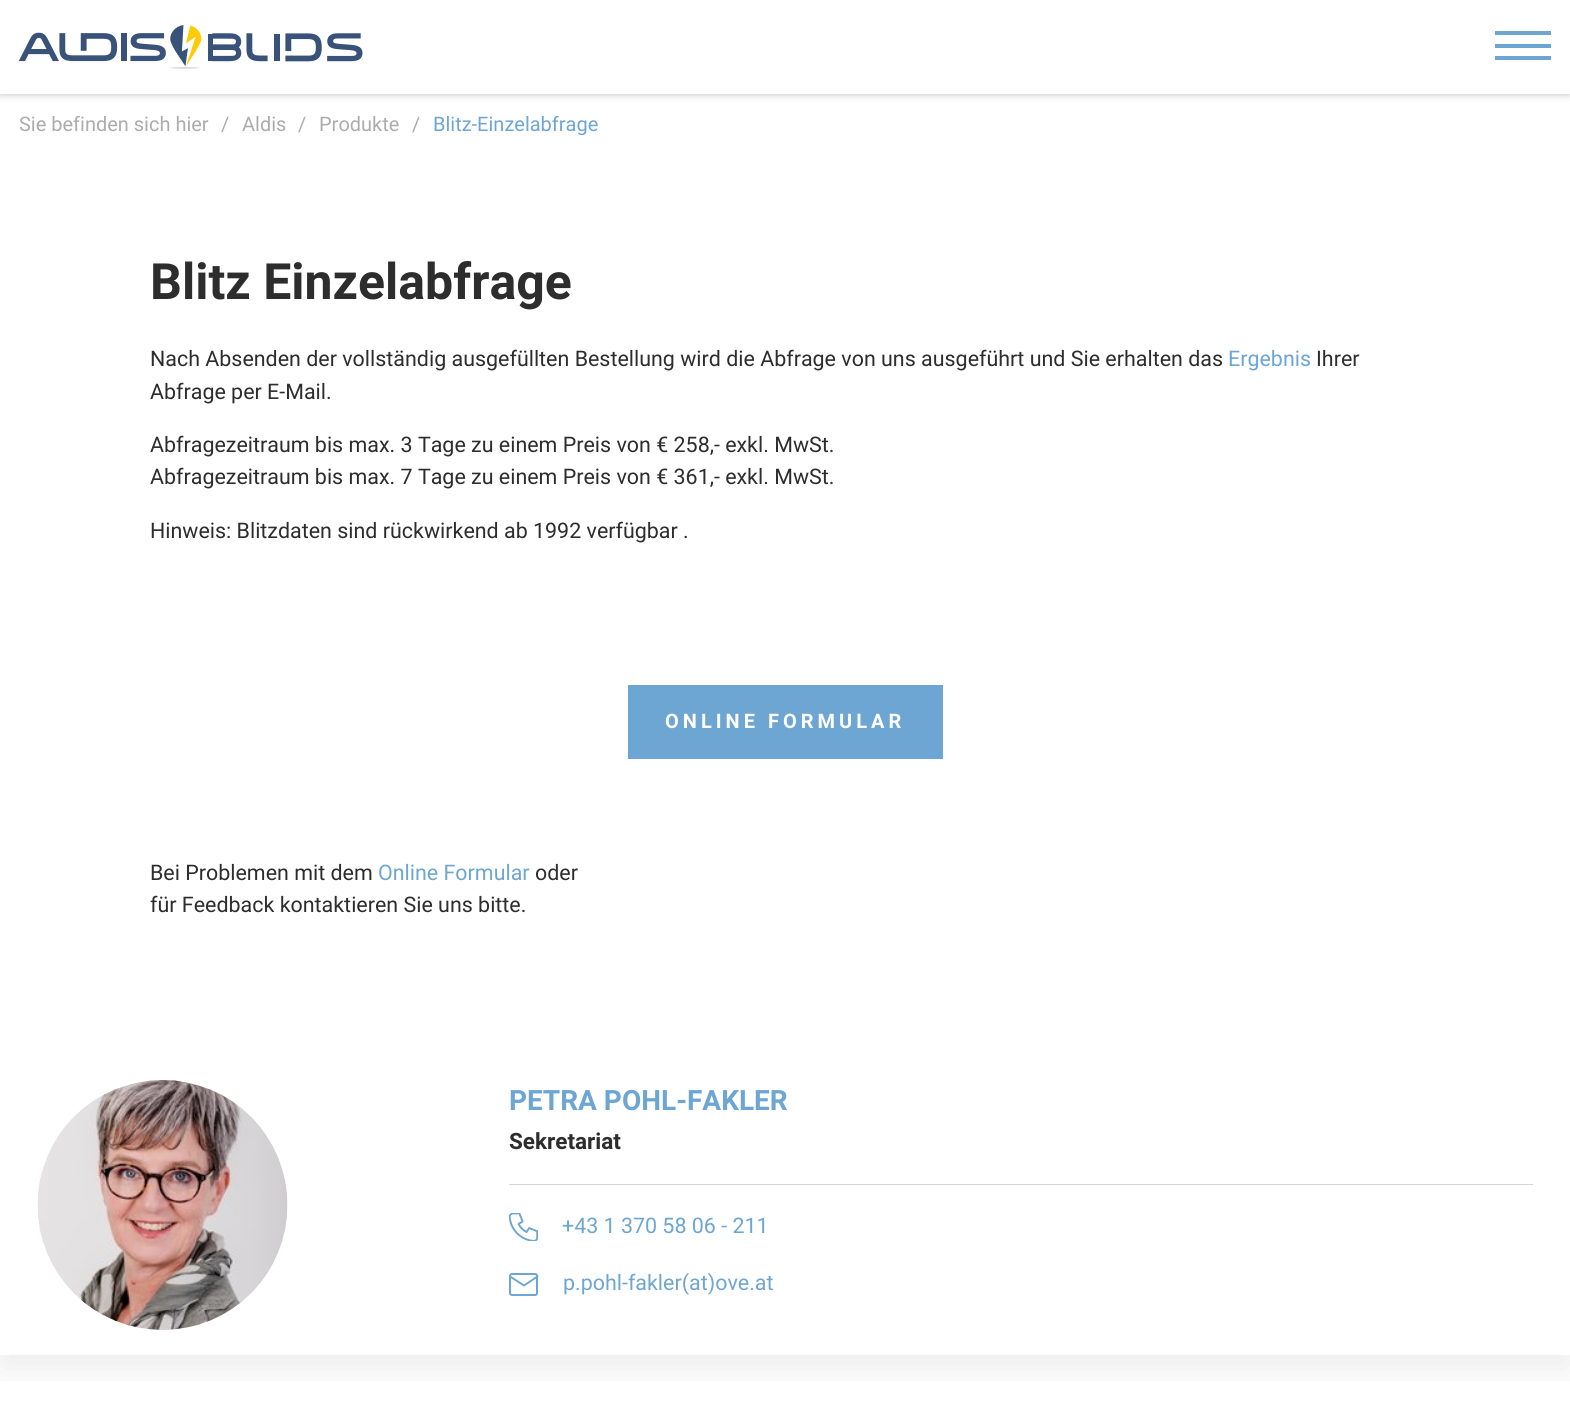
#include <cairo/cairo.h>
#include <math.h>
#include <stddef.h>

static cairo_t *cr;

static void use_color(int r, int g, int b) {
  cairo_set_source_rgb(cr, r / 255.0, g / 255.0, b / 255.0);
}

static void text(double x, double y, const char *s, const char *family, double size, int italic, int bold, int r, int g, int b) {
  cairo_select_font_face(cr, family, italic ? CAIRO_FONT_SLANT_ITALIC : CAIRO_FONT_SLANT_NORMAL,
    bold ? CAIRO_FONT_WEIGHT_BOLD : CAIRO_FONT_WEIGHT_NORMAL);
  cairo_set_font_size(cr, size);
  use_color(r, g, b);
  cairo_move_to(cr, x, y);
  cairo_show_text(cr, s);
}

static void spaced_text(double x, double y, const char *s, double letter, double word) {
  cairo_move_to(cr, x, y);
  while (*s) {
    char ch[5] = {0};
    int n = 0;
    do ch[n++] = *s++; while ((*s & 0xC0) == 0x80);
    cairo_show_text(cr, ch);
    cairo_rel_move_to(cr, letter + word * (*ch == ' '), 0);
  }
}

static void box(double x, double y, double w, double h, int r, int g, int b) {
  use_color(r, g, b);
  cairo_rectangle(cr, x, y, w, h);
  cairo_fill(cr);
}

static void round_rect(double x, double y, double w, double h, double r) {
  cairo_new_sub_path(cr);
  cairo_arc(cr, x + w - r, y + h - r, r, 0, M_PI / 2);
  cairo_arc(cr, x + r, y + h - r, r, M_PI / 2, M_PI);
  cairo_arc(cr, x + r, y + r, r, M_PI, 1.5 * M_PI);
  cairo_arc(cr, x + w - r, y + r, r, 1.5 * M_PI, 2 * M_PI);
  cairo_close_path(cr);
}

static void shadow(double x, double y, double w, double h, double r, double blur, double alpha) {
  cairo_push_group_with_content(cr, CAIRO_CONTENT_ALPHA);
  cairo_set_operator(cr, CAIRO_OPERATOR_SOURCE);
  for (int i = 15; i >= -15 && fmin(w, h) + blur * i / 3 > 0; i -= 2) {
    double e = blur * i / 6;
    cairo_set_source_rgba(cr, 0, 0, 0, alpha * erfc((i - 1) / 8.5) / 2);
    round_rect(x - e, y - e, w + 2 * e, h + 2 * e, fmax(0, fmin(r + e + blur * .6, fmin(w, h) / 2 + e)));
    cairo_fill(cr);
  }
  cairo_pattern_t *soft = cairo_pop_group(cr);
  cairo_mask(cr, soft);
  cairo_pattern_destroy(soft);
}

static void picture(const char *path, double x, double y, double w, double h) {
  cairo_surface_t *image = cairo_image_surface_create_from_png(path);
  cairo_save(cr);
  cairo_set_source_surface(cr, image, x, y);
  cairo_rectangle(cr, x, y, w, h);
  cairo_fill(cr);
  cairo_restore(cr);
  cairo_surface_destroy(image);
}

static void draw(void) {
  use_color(255, 255, 255);
  cairo_paint(cr);
  use_color(0, 0, 0);
  shadow(0, 0, 1570, 94, 0, 4, 0.26);
  box(0, 0, 1570, 94, 255, 255, 255);
  picture("img_01.png", 19, 25, 344, 44);
  box(1495, 31, 56, 4, 109, 165, 211);
  box(1495, 44, 56, 4, 109, 165, 211);
  box(1495, 56, 56, 4, 109, 165, 211);
  box(628, 685, 315, 74, 109, 165, 211);
  cairo_save(cr);
  cairo_rectangle(cr, 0, 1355, 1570, 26);
  cairo_clip(cr);
  use_color(0, 0, 0);
  shadow(0, 1055, 1570, 313, 0, 19, 0.08);
  cairo_restore(cr);
  picture("img_02.png", 37, 1080, 251, 250);
  box(509, 1184, 1024, 1, 213, 213, 213);
  picture("img_03.png", 509, 1213, 29, 28);
  round_rect(510, 1274, 27, 21, 2);
  use_color(109, 165, 211);
  cairo_stroke(cr);
  cairo_new_path(cr);
  cairo_move_to(cr, 510, 1276.5);
  cairo_line_to(cr, 524, 1285.5);
  cairo_line_to(cr, 537.5, 1276.5);
  cairo_set_line_width(cr, 1.9);
  cairo_set_line_cap(cr, CAIRO_LINE_CAP_ROUND);
  cairo_set_line_join(cr, CAIRO_LINE_JOIN_ROUND);
  cairo_stroke(cr);
  text(19, 131, "Sie befinden sich hier", "Roboto", 20, 0, 0, 172, 172, 172);
  text(221, 131, "/", "Roboto", 20, 0, 0, 172, 172, 172);
  text(242, 131, "Aldis", "Roboto", 20, 0, 0, 172, 172, 172);
  text(298, 131, "/", "Roboto", 20, 0, 0, 172, 172, 172);
  text(319, 131, "Produkte", "Roboto", 20, 0, 0, 172, 172, 172);
  text(412, 131, "/", "Roboto", 20, 0, 0, 172, 172, 172);
  text(433, 131, "Blitz-Einzelabfrage", "Roboto", 20, 0, 0, 109, 165, 211);
  text(150, 299, "Blitz Einzelabfrage", "Roboto", 50, 0, 1, 45, 45, 45);
  text(150, 366, "Nach Absenden der vollständig ausgefüllten Bestellung wird die Abfrage von uns ausgeführt und Sie erhalten das", "Roboto", 21.45, 0, 0, 45, 45, 45);
  text(1228, 366, "Ergebnis", "Roboto", 21.45, 0, 0, 109, 165, 211);
  text(1316, 366, "Ihrer", "Roboto", 21.45, 0, 0, 45, 45, 45);
  text(150, 399, "Abfrage per E-Mail.", "Roboto", 21.45, 0, 0, 45, 45, 45);
  text(150, 452, "Abfragezeitraum bis max. 3 Tage zu einem Preis von € 258,- exkl. MwSt.", "Roboto", 21.45, 0, 0, 45, 45, 45);
  text(150, 484, "Abfragezeitraum bis max. 7 Tage zu einem Preis von € 361,- exkl. MwSt.", "Roboto", 21.45, 0, 0, 45, 45, 45);
  text(150, 538, "Hinweis: Blitzdaten sind rückwirkend ab 1992 verfügbar .", "Roboto", 21.45, 0, 0, 45, 45, 45);
  cairo_select_font_face(cr, "Roboto", CAIRO_FONT_SLANT_NORMAL, CAIRO_FONT_WEIGHT_BOLD);
  cairo_set_font_size(cr, 20);
  use_color(255, 255, 255);
  spaced_text(665, 728, "ONLINE FORMULAR", 4, 0);
  text(150, 880, "Bei Problemen mit dem", "Roboto", 21.45, 0, 0, 45, 45, 45);
  text(378, 880, "Online Formular", "Roboto", 21.45, 0, 0, 109, 165, 211);
  text(535, 880, "oder", "Roboto", 21.45, 0, 0, 45, 45, 45);
  text(150, 912, "für Feedback kontaktieren Sie uns bitte.", "Roboto", 21.45, 0, 0, 45, 45, 45);
  text(509, 1110, "PETRA POHL-FAKLER", "Roboto", 28, 0, 1, 109, 165, 211);
  text(509, 1149, "Sekretariat", "Roboto", 22.5, 0, 1, 45, 45, 45);
  text(562, 1233, "+43 1 370 58 06 - 211", "Roboto", 21.45, 0, 0, 109, 165, 211);
  text(563, 1290, "p.pohl-fakler(at)ove.at", "Roboto", 21.45, 0, 0, 109, 165, 211);
}

int main(void) {
  cairo_surface_t *surface = cairo_image_surface_create(CAIRO_FORMAT_RGB24, 1570, 1422);
  cr = cairo_create(surface);
  cairo_font_options_t *options = cairo_font_options_create();
  cairo_font_options_set_hint_metrics(options, CAIRO_HINT_METRICS_OFF);
  cairo_font_options_set_hint_style(options, CAIRO_HINT_STYLE_NONE);
  cairo_set_font_options(cr, options);
  cairo_set_miter_limit(cr, 4);
  draw();
  cairo_surface_write_to_png(surface, "out.png");
  cairo_font_options_destroy(options);
  cairo_destroy(cr);
  cairo_surface_destroy(surface);
  return 0;
}
